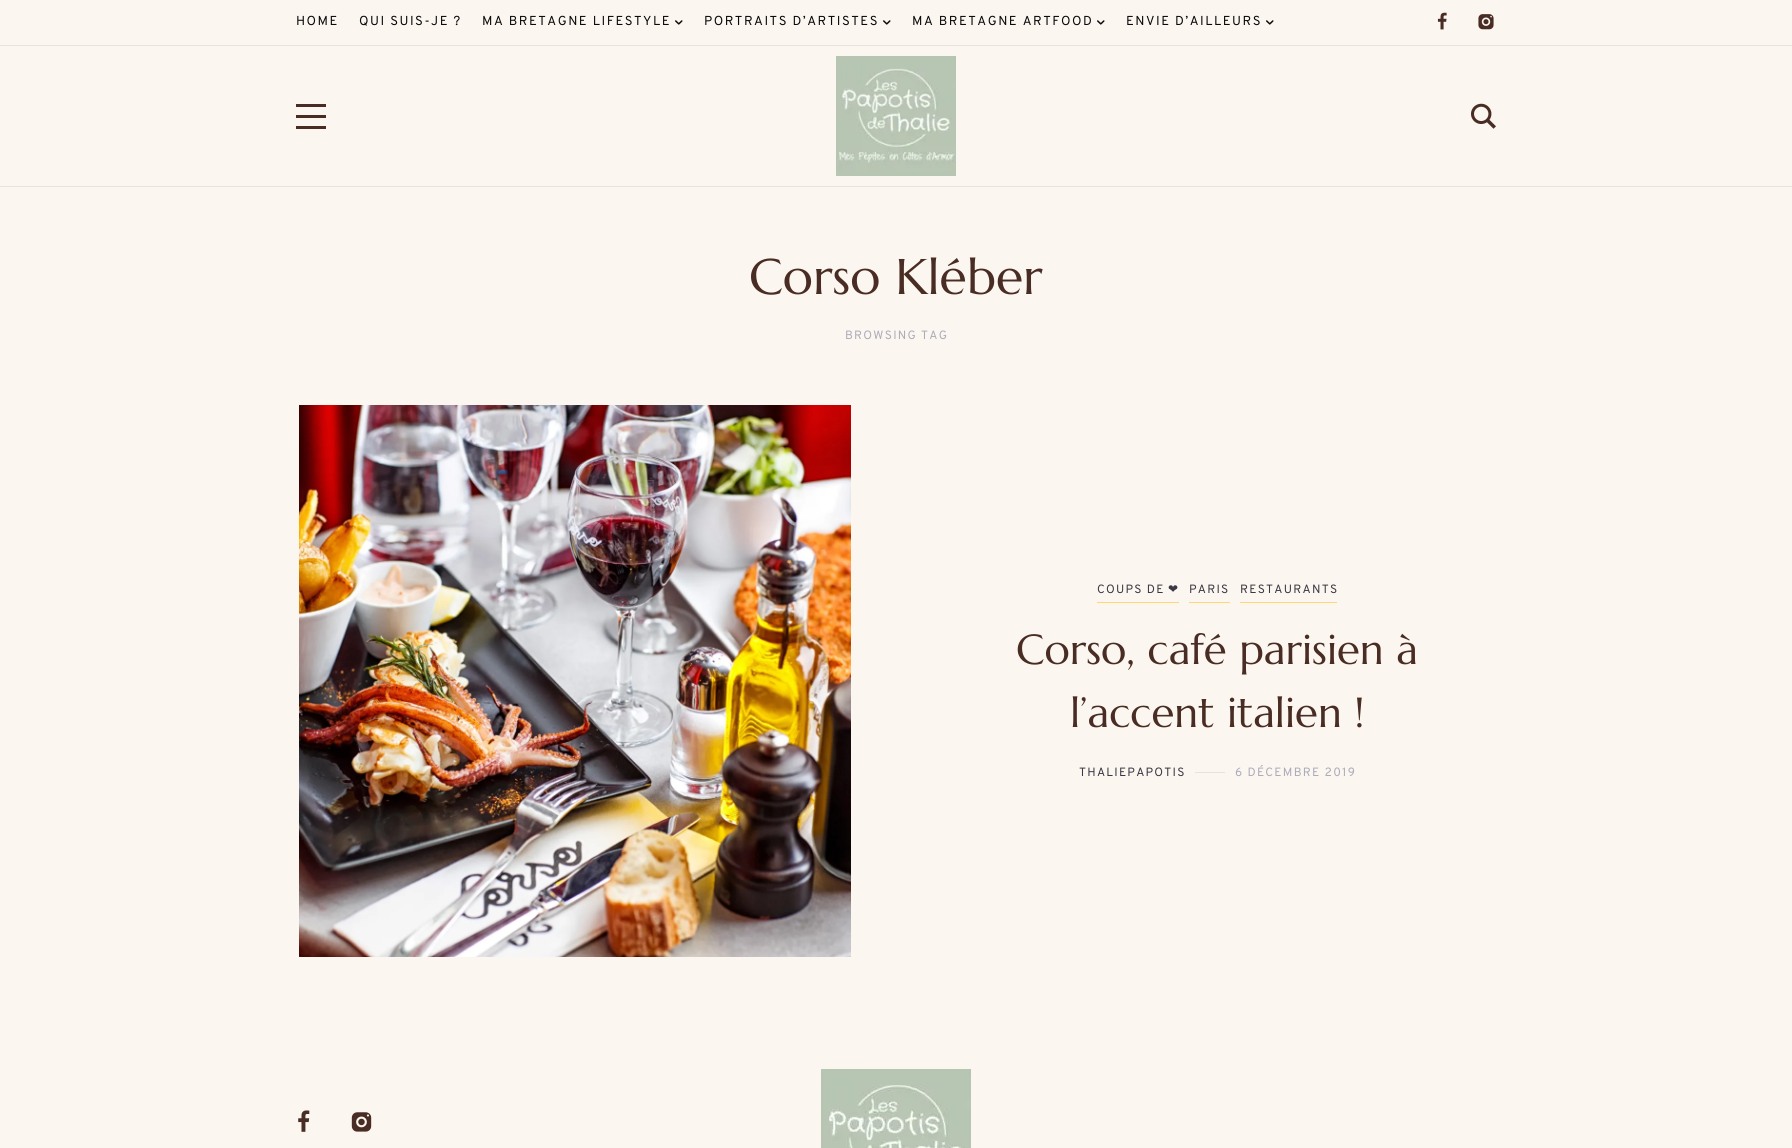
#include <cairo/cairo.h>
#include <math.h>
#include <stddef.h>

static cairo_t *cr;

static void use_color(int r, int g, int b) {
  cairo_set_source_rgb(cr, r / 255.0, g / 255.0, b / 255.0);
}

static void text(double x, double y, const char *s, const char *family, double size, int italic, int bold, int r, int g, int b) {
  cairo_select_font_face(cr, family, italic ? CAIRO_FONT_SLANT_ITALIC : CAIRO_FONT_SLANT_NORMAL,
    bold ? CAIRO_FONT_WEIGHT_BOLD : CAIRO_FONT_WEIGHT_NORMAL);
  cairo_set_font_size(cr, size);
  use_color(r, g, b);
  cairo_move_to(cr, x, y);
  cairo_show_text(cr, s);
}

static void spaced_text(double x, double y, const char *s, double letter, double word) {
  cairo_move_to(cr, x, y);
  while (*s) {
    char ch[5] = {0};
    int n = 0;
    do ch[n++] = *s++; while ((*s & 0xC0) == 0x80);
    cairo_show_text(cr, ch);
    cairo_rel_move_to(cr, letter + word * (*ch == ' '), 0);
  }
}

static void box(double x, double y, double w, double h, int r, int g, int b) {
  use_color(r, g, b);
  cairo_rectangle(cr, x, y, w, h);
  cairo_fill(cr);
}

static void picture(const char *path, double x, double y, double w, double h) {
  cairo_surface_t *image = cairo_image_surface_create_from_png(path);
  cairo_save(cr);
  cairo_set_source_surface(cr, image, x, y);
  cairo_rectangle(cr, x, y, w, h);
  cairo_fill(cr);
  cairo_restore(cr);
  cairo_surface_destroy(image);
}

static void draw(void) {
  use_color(251, 246, 240);
  cairo_paint(cr);
  box(0, 45, 1792, 1, 229, 227, 224);
  picture("img_01.png", 675, 20, 8, 5);
  picture("img_01.png", 883, 20, 8, 5);
  picture("img_01.png", 1097, 20, 8, 5);
  picture("img_01.png", 1266, 20, 8, 5);
  picture("img_02.png", 1437, 12, 10, 18);
  picture("img_03.png", 1478, 14, 16, 16);
  box(0, 186, 1792, 1, 229, 227, 224);
  box(296, 104, 30, 3, 73, 44, 35);
  box(296, 126, 30, 3, 73, 44, 35);
  box(296, 115, 30, 3, 73, 44, 35);
  picture("img_04.png", 836, 56, 120, 120);
  picture("img_05.png", 1471, 103, 25, 26);
  picture("img_06.png", 299, 405, 552, 552);
  box(1097, 602, 82, 1, 255, 216, 116);
  box(1189, 602, 41, 1, 255, 216, 116);
  box(1240, 602, 97, 1, 255, 216, 116);
  box(1195, 772, 30, 1, 229, 227, 224);
  picture("img_07.png", 298, 1110, 12, 22);
  picture("img_08.png", 351, 1112, 21, 20);
  picture("img_09.png", 821, 1069, 150, 79);
  cairo_select_font_face(cr, "Overpass", CAIRO_FONT_SLANT_NORMAL, CAIRO_FONT_WEIGHT_NORMAL);
  cairo_set_font_size(cr, 13);
  use_color(10, 10, 10);
  spaced_text(296, 25, "HOME", 1.5, 0);
  spaced_text(359, 25, "QUI SUIS-JE ?", 1.5, 0);
  spaced_text(482, 25, "MA BRETAGNE LIFESTYLE", 1.5, 0);
  spaced_text(704, 25, "PORTRAITS D’ARTISTES", 1.5, 0);
  spaced_text(912, 25, "MA BRETAGNE ARTFOOD", 1.5, 0);
  spaced_text(1126, 25, "ENVIE D’AILLEURS", 1.5, 0);
  text(749, 294, "Corso Kléber", "Marcellus", 50, 0, 0, 73, 44, 35);
  cairo_select_font_face(cr, "Overpass", CAIRO_FONT_SLANT_NORMAL, CAIRO_FONT_WEIGHT_NORMAL);
  cairo_set_font_size(cr, 12);
  use_color(172, 171, 186);
  spaced_text(845, 339, "BROWSING TAG", 1.25, 0);
  use_color(59, 56, 68);
  spaced_text(1097, 593, "COUPS DE", 1.25, 0);
  cairo_select_font_face(cr, "DejaVu Sans", CAIRO_FONT_SLANT_NORMAL, CAIRO_FONT_WEIGHT_NORMAL);
  spaced_text(1168, 593, "❤", 1.25, 0);
  cairo_select_font_face(cr, "Overpass", CAIRO_FONT_SLANT_NORMAL, CAIRO_FONT_WEIGHT_NORMAL);
  spaced_text(1189, 593, "PARIS", 1.25, 0);
  spaced_text(1240, 593, "RESTAURANTS", 1.25, 0);
  text(1016, 664, "Corso, café parisien à", "Marcellus", 42, 0, 0, 73, 44, 35);
  text(1070, 727, "l’accent italien !", "Marcellus", 42, 0, 0, 73, 44, 35);
  cairo_select_font_face(cr, "Overpass", CAIRO_FONT_SLANT_NORMAL, CAIRO_FONT_WEIGHT_NORMAL);
  cairo_set_font_size(cr, 12);
  use_color(59, 56, 68);
  spaced_text(1079, 776, "THALIEPAPOTIS", 1.25, 0);
  use_color(172, 171, 186);
  spaced_text(1235, 776, "6 DÉCEMBRE 2019", 1.25, 0);
}

int main(void) {
  cairo_surface_t *surface = cairo_image_surface_create(CAIRO_FORMAT_RGB24, 1792, 1148);
  cr = cairo_create(surface);
  cairo_font_options_t *options = cairo_font_options_create();
  cairo_font_options_set_hint_metrics(options, CAIRO_HINT_METRICS_OFF);
  cairo_font_options_set_hint_style(options, CAIRO_HINT_STYLE_NONE);
  cairo_set_font_options(cr, options);
  cairo_set_miter_limit(cr, 4);
  draw();
  cairo_surface_write_to_png(surface, "out.png");
  cairo_font_options_destroy(options);
  cairo_destroy(cr);
  cairo_surface_destroy(surface);
  return 0;
}
